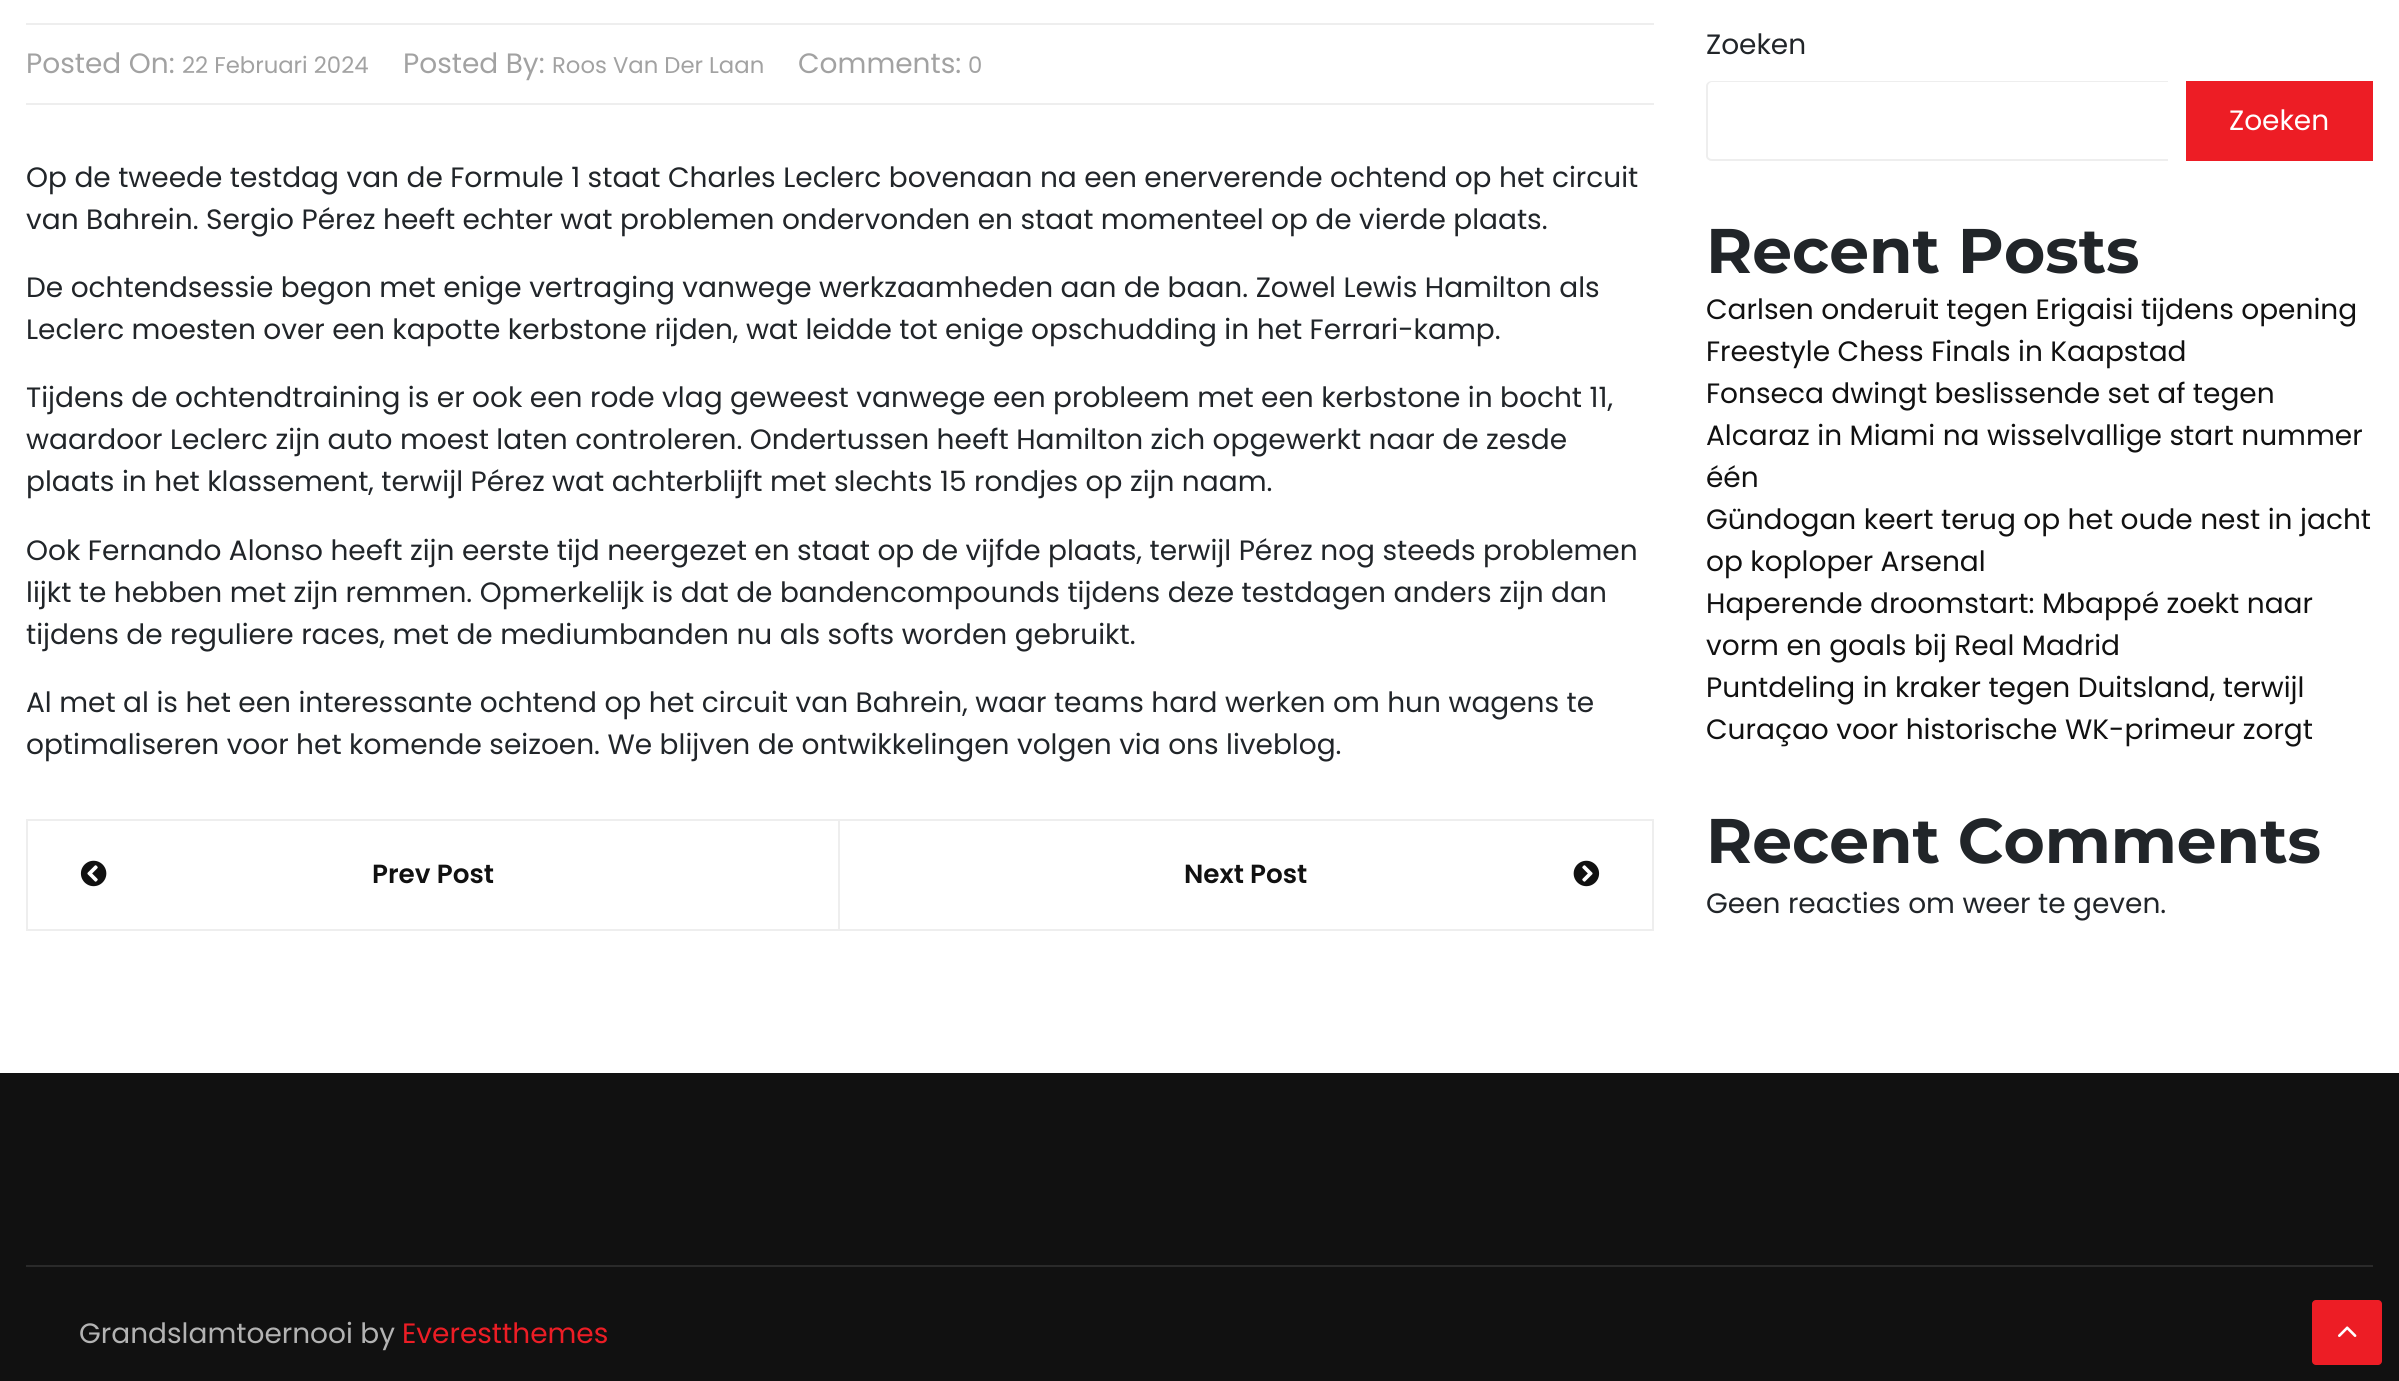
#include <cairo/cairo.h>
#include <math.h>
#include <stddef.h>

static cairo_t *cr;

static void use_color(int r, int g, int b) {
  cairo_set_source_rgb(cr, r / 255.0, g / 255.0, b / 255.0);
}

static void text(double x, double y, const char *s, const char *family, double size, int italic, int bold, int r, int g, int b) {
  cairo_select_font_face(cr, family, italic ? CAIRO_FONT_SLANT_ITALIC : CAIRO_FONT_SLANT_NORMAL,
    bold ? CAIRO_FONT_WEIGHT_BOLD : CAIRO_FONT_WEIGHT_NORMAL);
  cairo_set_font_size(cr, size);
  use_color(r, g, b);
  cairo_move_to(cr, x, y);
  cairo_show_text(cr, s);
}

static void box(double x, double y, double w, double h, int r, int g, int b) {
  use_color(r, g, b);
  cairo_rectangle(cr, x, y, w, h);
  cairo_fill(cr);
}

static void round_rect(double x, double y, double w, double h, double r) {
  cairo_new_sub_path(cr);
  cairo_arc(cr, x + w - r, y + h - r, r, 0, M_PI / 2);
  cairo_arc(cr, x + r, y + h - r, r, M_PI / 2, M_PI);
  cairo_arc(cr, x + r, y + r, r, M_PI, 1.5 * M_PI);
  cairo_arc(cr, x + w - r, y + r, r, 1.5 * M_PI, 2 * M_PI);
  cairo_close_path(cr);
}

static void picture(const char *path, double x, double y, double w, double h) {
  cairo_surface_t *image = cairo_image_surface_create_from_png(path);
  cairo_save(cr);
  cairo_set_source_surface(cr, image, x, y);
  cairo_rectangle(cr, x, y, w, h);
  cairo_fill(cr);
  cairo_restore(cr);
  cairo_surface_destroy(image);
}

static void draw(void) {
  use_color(255, 255, 255);
  cairo_paint(cr);
  box(26, 23, 1628, 2, 238, 238, 238);
  box(26, 103, 1628, 2, 238, 238, 238);
  cairo_rectangle(cr, 27, 820, 1626, 110);
  cairo_stroke(cr);
  box(838, 821, 2, 108, 238, 238, 238);
  picture("img_01.png", 80, 860, 27, 27);
  picture("img_02.png", 1573, 860, 27, 27);
  cairo_set_fill_rule(cr, CAIRO_FILL_RULE_EVEN_ODD);
  cairo_new_path(cr);
  cairo_move_to(cr, 1712, 81);
  cairo_line_to(cr, 2168, 81);
  cairo_line_to(cr, 2168, 161);
  cairo_line_to(cr, 1712, 161);
  cairo_curve_to(cr, 1709, 161, 1706, 159, 1706, 156);
  cairo_line_to(cr, 1706, 86);
  cairo_curve_to(cr, 1706, 83, 1709, 81, 1712, 81);
  cairo_close_path(cr);
  cairo_move_to(cr, 1712, 82);
  cairo_line_to(cr, 2168, 82);
  cairo_line_to(cr, 2168, 159);
  cairo_line_to(cr, 1712, 159);
  cairo_curve_to(cr, 1710, 159, 1708, 158, 1708, 156);
  cairo_line_to(cr, 1708, 86);
  cairo_curve_to(cr, 1708, 84, 1710, 82, 1712, 82);
  cairo_close_path(cr);
  cairo_fill(cr);
  box(2186, 81, 187, 80, 237, 29, 37);
  box(0, 1073, 2399, 308, 17, 17, 17);
  box(26, 1265, 2347, 2, 42, 42, 42);
  use_color(237, 29, 37);
  round_rect(2312, 1300, 70, 65, 4);
  cairo_fill(cr);
  picture("img_03.png", 2338, 1326, 19, 11);
  text(26, 73, "Posted On:", "Poppins", 28, 0, 0, 162, 162, 162);
  text(182, 73, "22 Februari 2024", "Poppins", 22.75, 0, 0, 162, 162, 162);
  text(403, 73, "Posted By:", "Poppins", 28, 0, 0, 162, 162, 162);
  text(552, 73, "Roos Van Der Laan", "Poppins", 22.75, 0, 0, 162, 162, 162);
  text(798, 73, "Comments:", "Poppins", 28, 0, 0, 162, 162, 162);
  text(968, 73, "0", "Poppins", 22.75, 0, 0, 162, 162, 162);
  text(26, 187, "Op de tweede testdag van de Formule 1 staat Charles Leclerc bovenaan na een enerverende ochtend op het circuit", "Poppins", 28, 0, 0, 33, 37, 41);
  text(26, 229, "van Bahrein. Sergio Pérez heeft echter wat problemen ondervonden en staat momenteel op de vierde plaats.", "Poppins", 28, 0, 0, 33, 37, 41);
  text(26, 297, "De ochtendsessie begon met enige vertraging vanwege werkzaamheden aan de baan. Zowel Lewis Hamilton als", "Poppins", 28, 0, 0, 33, 37, 41);
  text(26, 339, "Leclerc moesten over een kapotte kerbstone rijden, wat leidde tot enige opschudding in het Ferrari-kamp.", "Poppins", 28, 0, 0, 33, 37, 41);
  text(26, 407, "Tijdens de ochtendtraining is er ook een rode vlag geweest vanwege een probleem met een kerbstone in bocht 11,", "Poppins", 28, 0, 0, 33, 37, 41);
  text(26, 449, "waardoor Leclerc zijn auto moest laten controleren. Ondertussen heeft Hamilton zich opgewerkt naar de zesde", "Poppins", 28, 0, 0, 33, 37, 41);
  text(26, 491, "plaats in het klassement, terwijl Pérez wat achterblijft met slechts 15 rondjes op zijn naam.", "Poppins", 28, 0, 0, 33, 37, 41);
  text(26, 560, "Ook Fernando Alonso heeft zijn eerste tijd neergezet en staat op de vijfde plaats, terwijl Pérez nog steeds problemen", "Poppins", 28, 0, 0, 33, 37, 41);
  text(26, 602, "lijkt te hebben met zijn remmen. Opmerkelijk is dat de bandencompounds tijdens deze testdagen anders zijn dan", "Poppins", 28, 0, 0, 33, 37, 41);
  text(26, 644, "tijdens de reguliere races, met de mediumbanden nu als softs worden gebruikt.", "Poppins", 28, 0, 0, 33, 37, 41);
  text(26, 712, "Al met al is het een interessante ochtend op het circuit van Bahrein, waar teams hard werken om hun wagens te", "Poppins", 28, 0, 0, 33, 37, 41);
  text(26, 754, "optimaliseren voor het komende seizoen. We blijven de ontwikkelingen volgen via ons liveblog.", "Poppins", 28, 0, 0, 33, 37, 41);
  text(372, 883, "Prev Post", "Poppins SemiBold", 26.25, 0, 0, 17, 17, 17);
  text(1184, 883, "Next Post", "Poppins SemiBold", 26.25, 0, 0, 17, 17, 17);
  text(1706, 54, "Zoeken", "Poppins", 28, 0, 0, 33, 37, 41);
  text(2229, 130, "Zoeken", "Poppins", 28, 0, 0, 255, 255, 255);
  text(1706, 273, "Recent Posts", "Montserrat", 63, 0, 1, 33, 37, 41);
  text(1706, 319, "Carlsen onderuit tegen Erigaisi tijdens opening", "Poppins", 28, 0, 0, 17, 17, 17);
  text(1706, 361, "Freestyle Chess Finals in Kaapstad", "Poppins", 28, 0, 0, 17, 17, 17);
  text(1706, 403, "Fonseca dwingt beslissende set af tegen", "Poppins", 28, 0, 0, 17, 17, 17);
  text(1706, 445, "Alcaraz in Miami na wisselvallige start nummer", "Poppins", 28, 0, 0, 17, 17, 17);
  text(1706, 487, "één", "Poppins", 28, 0, 0, 17, 17, 17);
  text(1706, 529, "Gündogan keert terug op het oude nest in jacht", "Poppins", 28, 0, 0, 17, 17, 17);
  text(1706, 571, "op koploper Arsenal", "Poppins", 28, 0, 0, 17, 17, 17);
  text(1706, 613, "Haperende droomstart: Mbappé zoekt naar", "Poppins", 28, 0, 0, 17, 17, 17);
  text(1706, 655, "vorm en goals bij Real Madrid", "Poppins", 28, 0, 0, 17, 17, 17);
  text(1706, 697, "Puntdeling in kraker tegen Duitsland, terwijl", "Poppins", 28, 0, 0, 17, 17, 17);
  text(1706, 739, "Curaçao voor historische WK-primeur zorgt", "Poppins", 28, 0, 0, 17, 17, 17);
  text(1706, 863, "Recent Comments", "Montserrat", 63, 0, 1, 33, 37, 41);
  text(1706, 913, "Geen reacties om weer te geven.", "Poppins", 28, 0, 0, 33, 37, 41);
  text(79, 1343, "Grandslamtoernooi by", "Poppins", 28, 0, 0, 179, 179, 179);
  text(402, 1343, "Everestthemes", "Poppins", 28, 0, 0, 237, 29, 37);
}

int main(void) {
  cairo_surface_t *surface = cairo_image_surface_create(CAIRO_FORMAT_RGB24, 2399, 1381);
  cr = cairo_create(surface);
  cairo_font_options_t *options = cairo_font_options_create();
  cairo_font_options_set_hint_metrics(options, CAIRO_HINT_METRICS_OFF);
  cairo_font_options_set_hint_style(options, CAIRO_HINT_STYLE_NONE);
  cairo_set_font_options(cr, options);
  cairo_set_miter_limit(cr, 4);
  draw();
  cairo_surface_write_to_png(surface, "out.png");
  cairo_font_options_destroy(options);
  cairo_destroy(cr);
  cairo_surface_destroy(surface);
  return 0;
}
